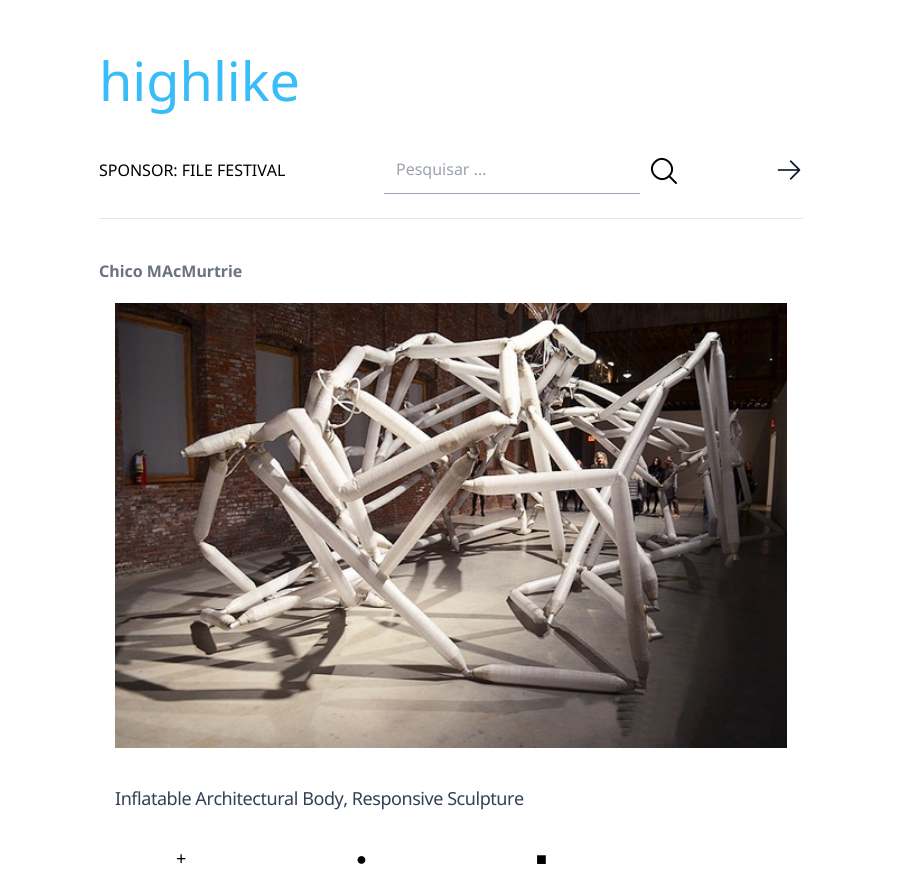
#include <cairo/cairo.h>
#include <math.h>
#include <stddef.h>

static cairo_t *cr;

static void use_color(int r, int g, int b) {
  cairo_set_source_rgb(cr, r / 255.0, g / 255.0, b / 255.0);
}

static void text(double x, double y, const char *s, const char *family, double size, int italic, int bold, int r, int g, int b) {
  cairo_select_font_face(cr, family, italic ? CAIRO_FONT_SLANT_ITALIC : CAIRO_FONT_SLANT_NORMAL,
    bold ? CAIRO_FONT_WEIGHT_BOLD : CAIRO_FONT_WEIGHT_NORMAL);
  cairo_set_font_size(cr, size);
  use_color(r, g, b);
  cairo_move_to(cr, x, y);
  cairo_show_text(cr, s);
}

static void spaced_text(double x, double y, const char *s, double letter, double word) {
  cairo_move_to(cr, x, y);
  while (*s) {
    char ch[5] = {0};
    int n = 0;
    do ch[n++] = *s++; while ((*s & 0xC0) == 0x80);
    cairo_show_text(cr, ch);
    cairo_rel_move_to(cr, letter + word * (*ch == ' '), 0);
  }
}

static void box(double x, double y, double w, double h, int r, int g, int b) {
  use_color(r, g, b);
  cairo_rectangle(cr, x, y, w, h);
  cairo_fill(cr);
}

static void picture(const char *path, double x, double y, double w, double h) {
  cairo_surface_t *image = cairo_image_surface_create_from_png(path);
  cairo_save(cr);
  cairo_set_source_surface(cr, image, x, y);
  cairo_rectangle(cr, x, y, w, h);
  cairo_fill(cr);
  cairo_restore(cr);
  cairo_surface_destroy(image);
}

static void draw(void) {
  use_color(255, 255, 255);
  cairo_paint(cr);
  box(99, 218, 704, 1, 229, 231, 235);
  box(384, 193, 256, 1, 148, 163, 184);
  cairo_new_path(cr);
  cairo_move_to(cr, 676, 183);
  cairo_line_to(cr, 669, 176);
  cairo_move_to(cr, 669, 176);
  cairo_curve_to(cr, 678.5, 167, 664, 152.5, 655, 162);
  cairo_curve_to(cr, 645.5, 171, 660, 185.5, 669, 176);
  cairo_close_path(cr);
  use_color(0, 0, 0);
  cairo_set_line_cap(cr, CAIRO_LINE_CAP_ROUND);
  cairo_set_line_join(cr, CAIRO_LINE_JOIN_ROUND);
  cairo_stroke(cr);
  picture("img_01.png", 777, 160, 24, 20);
  picture("img_02.png", 115, 303, 672, 445);
  text(99, 101, "highlike", "Noto Sans", 54, 0, 0, 56, 189, 248);
  text(99, 176, "SPONSOR: FILE FESTIVAL", "Noto Sans", 16, 0, 0, 0, 0, 0);
  text(396, 175, "Pesquisar …", "Noto Sans", 16, 0, 0, 156, 163, 175);
  text(99, 277, "Chico MAcMurtrie", "Noto Sans", 16, 0, 1, 107, 114, 128);
  cairo_select_font_face(cr, "Noto Sans", CAIRO_FONT_SLANT_NORMAL, CAIRO_FONT_WEIGHT_NORMAL);
  cairo_set_font_size(cr, 18);
  use_color(51, 65, 85);
  spaced_text(115, 805, "Inflatable Architectural Body, Responsive Sculpture", -0.45, 0);
  text(176, 865, "+", "Noto Sans", 18, 0, 0, 0, 0, 0);
  text(356, 865, "●", "Liberation Sans", 18, 0, 0, 0, 0, 0);
  text(536, 865, "■", "Liberation Sans", 18, 0, 0, 0, 0, 0);
}

int main(void) {
  cairo_surface_t *surface = cairo_image_surface_create(CAIRO_FORMAT_RGB24, 902, 876);
  cr = cairo_create(surface);
  cairo_font_options_t *options = cairo_font_options_create();
  cairo_font_options_set_hint_metrics(options, CAIRO_HINT_METRICS_OFF);
  cairo_font_options_set_hint_style(options, CAIRO_HINT_STYLE_NONE);
  cairo_set_font_options(cr, options);
  cairo_set_miter_limit(cr, 4);
  draw();
  cairo_surface_write_to_png(surface, "out.png");
  cairo_font_options_destroy(options);
  cairo_destroy(cr);
  cairo_surface_destroy(surface);
  return 0;
}
